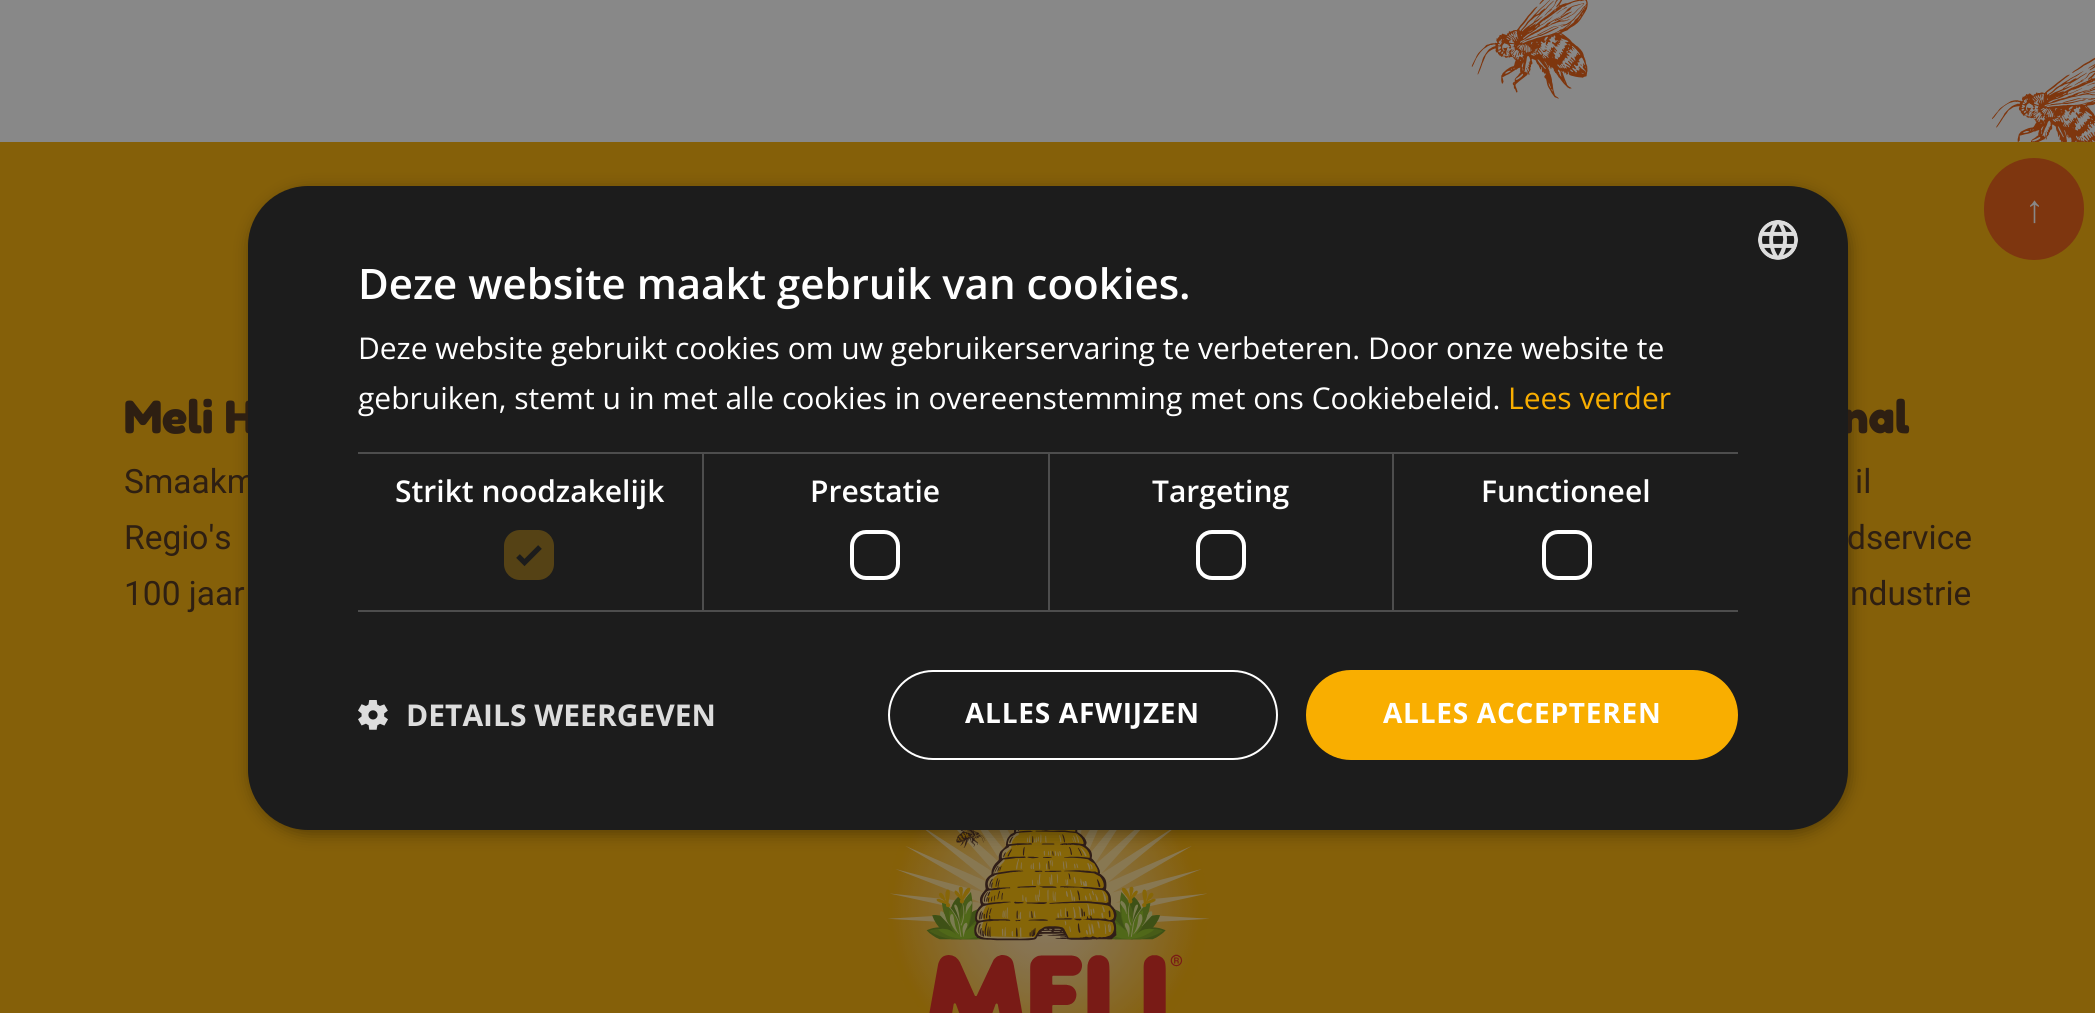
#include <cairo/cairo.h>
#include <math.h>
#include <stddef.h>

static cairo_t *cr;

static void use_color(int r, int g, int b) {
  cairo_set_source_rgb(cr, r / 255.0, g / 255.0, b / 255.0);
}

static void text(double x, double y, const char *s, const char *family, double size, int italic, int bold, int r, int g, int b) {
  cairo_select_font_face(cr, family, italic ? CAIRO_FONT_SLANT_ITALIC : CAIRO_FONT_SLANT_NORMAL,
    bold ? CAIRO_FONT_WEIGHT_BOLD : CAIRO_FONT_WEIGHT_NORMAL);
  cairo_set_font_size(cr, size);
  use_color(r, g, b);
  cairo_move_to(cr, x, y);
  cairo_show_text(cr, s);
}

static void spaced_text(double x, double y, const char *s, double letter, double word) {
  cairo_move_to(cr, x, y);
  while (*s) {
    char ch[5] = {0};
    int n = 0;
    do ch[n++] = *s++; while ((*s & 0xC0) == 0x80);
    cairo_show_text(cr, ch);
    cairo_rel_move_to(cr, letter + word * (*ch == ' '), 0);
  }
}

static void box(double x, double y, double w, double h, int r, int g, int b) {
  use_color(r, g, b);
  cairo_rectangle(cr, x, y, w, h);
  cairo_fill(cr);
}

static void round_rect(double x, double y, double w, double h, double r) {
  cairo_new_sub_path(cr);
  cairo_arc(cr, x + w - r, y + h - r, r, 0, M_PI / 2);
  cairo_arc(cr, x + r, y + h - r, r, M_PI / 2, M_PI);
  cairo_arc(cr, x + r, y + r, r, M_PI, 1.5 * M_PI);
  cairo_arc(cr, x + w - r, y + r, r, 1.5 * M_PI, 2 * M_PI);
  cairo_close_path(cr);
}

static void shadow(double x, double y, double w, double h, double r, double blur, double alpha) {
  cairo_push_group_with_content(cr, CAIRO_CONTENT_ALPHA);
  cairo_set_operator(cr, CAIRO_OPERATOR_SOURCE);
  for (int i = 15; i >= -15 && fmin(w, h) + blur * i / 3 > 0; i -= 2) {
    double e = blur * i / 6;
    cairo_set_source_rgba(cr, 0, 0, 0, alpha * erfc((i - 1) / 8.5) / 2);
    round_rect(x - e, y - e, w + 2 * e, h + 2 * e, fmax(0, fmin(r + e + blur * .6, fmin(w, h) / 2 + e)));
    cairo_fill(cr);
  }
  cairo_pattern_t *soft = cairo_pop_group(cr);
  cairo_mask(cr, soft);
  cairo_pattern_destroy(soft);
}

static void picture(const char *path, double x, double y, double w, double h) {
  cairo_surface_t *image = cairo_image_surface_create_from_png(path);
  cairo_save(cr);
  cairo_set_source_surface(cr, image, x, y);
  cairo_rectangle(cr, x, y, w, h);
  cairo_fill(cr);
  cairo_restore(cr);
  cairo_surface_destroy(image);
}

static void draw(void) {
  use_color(133, 96, 9);
  cairo_paint(cr);
  box(0, 0, 2095, 142, 136, 136, 136);
  picture("img_01.png", 1471, 0, 117, 99);
  picture("img_02.png", 1992, 57, 103, 85);
  use_color(126, 54, 15);
  round_rect(1986, 160, 96, 98, 48);
  cairo_fill_preserve(cr);
  cairo_set_line_width(cr, 4);
  cairo_stroke(cr);
  picture("img_03.png", 888, 830, 321, 183);
  use_color(0, 0, 0);
  shadow(250, 190, 1600, 644, 60, 8, 0.35);
  text(2025, 222, "↑", "Liberation Sans", 38, 0, 0, 136, 136, 136);
  text(124, 433, "Meli H", "Fredoka Light", 47, 0, 0, 46, 31, 18);
  text(124, 493, "Smaakm", "Roboto", 33.5, 0, 0, 46, 31, 18);
  text(124, 549, "Regio's", "Roboto", 33.5, 0, 0, 46, 31, 18);
  text(124, 605, "100 jaar", "Roboto", 33.5, 0, 0, 46, 31, 18);
  text(1842, 433, "nal", "Fredoka Light", 47, 0, 0, 46, 31, 18);
  text(1855, 493, "il", "Roboto", 33.5, 0, 0, 46, 31, 18);
  text(1847, 549, "dservice", "Roboto", 33.5, 0, 0, 46, 31, 18);
  text(1850, 605, "ndustrie", "Roboto", 33.5, 0, 0, 46, 31, 18);
  use_color(28, 28, 28);
  round_rect(248, 186, 1600, 644, 60);
  cairo_fill(cr);
  picture("img_04.png", 1758, 220, 40, 40);
  text(358, 299, "Deze website maakt gebruik van cookies.", "Open Sans SemiBold", 42, 0, 0, 255, 255, 255);
  text(358, 359, "Deze website gebruikt cookies om uw gebruikerservaring te verbeteren. Door onze website te", "Open Sans", 30, 0, 0, 255, 255, 255);
  text(358, 409, "gebruiken, stemt u in met alle cookies in overeenstemming met ons Cookiebeleid.", "Open Sans", 30, 0, 0, 255, 255, 255);
  text(1508, 409, "Lees verder", "Open Sans", 30, 0, 0, 249, 174, 0);
  box(358, 452, 1380, 2, 77, 77, 77);
  box(702, 452, 2, 160, 77, 77, 77);
  box(358, 610, 346, 2, 77, 77, 77);
  text(395, 502, "Strikt noodzakelijk", "Open Sans SemiBold", 30, 0, 0, 255, 255, 255);
  use_color(85, 66, 21);
  round_rect(504, 530, 50, 50, 16);
  cairo_fill(cr);
  cairo_new_path(cr);
  cairo_move_to(cr, 518, 556);
  cairo_line_to(cr, 524.5, 562.5);
  cairo_line_to(cr, 540, 547);
  use_color(28, 28, 28);
  cairo_set_line_width(cr, 5.2);
  cairo_stroke(cr);
  box(1048, 452, 2, 160, 77, 77, 77);
  box(704, 610, 346, 2, 77, 77, 77);
  text(810, 502, "Prestatie", "Open Sans SemiBold", 30, 0, 0, 255, 255, 255);
  round_rect(852, 532, 46, 46, 14);
  cairo_set_line_width(cr, 4);
  cairo_stroke(cr);
  box(1392, 452, 2, 160, 77, 77, 77);
  box(1050, 610, 688, 2, 77, 77, 77);
  text(1152, 502, "Targeting", "Open Sans SemiBold", 30, 0, 0, 255, 255, 255);
  round_rect(1198, 532, 46, 46, 14);
  cairo_stroke(cr);
  text(1481, 502, "Functioneel", "Open Sans SemiBold", 30, 0, 0, 255, 255, 255);
  round_rect(1544, 532, 46, 46, 14);
  cairo_stroke(cr);
  picture("img_05.png", 358, 700, 30, 30);
  text(406, 726, "DETAILS WEERGEVEN", "Open Sans", 30, 0, 1, 221, 221, 221);
  round_rect(889, 671, 388, 88, 44);
  use_color(255, 255, 255);
  cairo_set_line_width(cr, 2);
  cairo_stroke(cr);
  cairo_set_font_size(cr, 28);
  spaced_text(965, 723, "ALLES AFWIJZEN", 0.75, 0);
  use_color(249, 174, 0);
  round_rect(1306, 670, 432, 90, 45);
  cairo_fill(cr);
  use_color(255, 255, 255);
  spaced_text(1383, 723, "ALLES ACCEPTEREN", 0.75, 0);
}

int main(void) {
  cairo_surface_t *surface = cairo_image_surface_create(CAIRO_FORMAT_RGB24, 2095, 1013);
  cr = cairo_create(surface);
  cairo_font_options_t *options = cairo_font_options_create();
  cairo_font_options_set_hint_metrics(options, CAIRO_HINT_METRICS_OFF);
  cairo_font_options_set_hint_style(options, CAIRO_HINT_STYLE_NONE);
  cairo_set_font_options(cr, options);
  cairo_set_miter_limit(cr, 4);
  draw();
  cairo_surface_write_to_png(surface, "out.png");
  cairo_font_options_destroy(options);
  cairo_destroy(cr);
  cairo_surface_destroy(surface);
  return 0;
}
